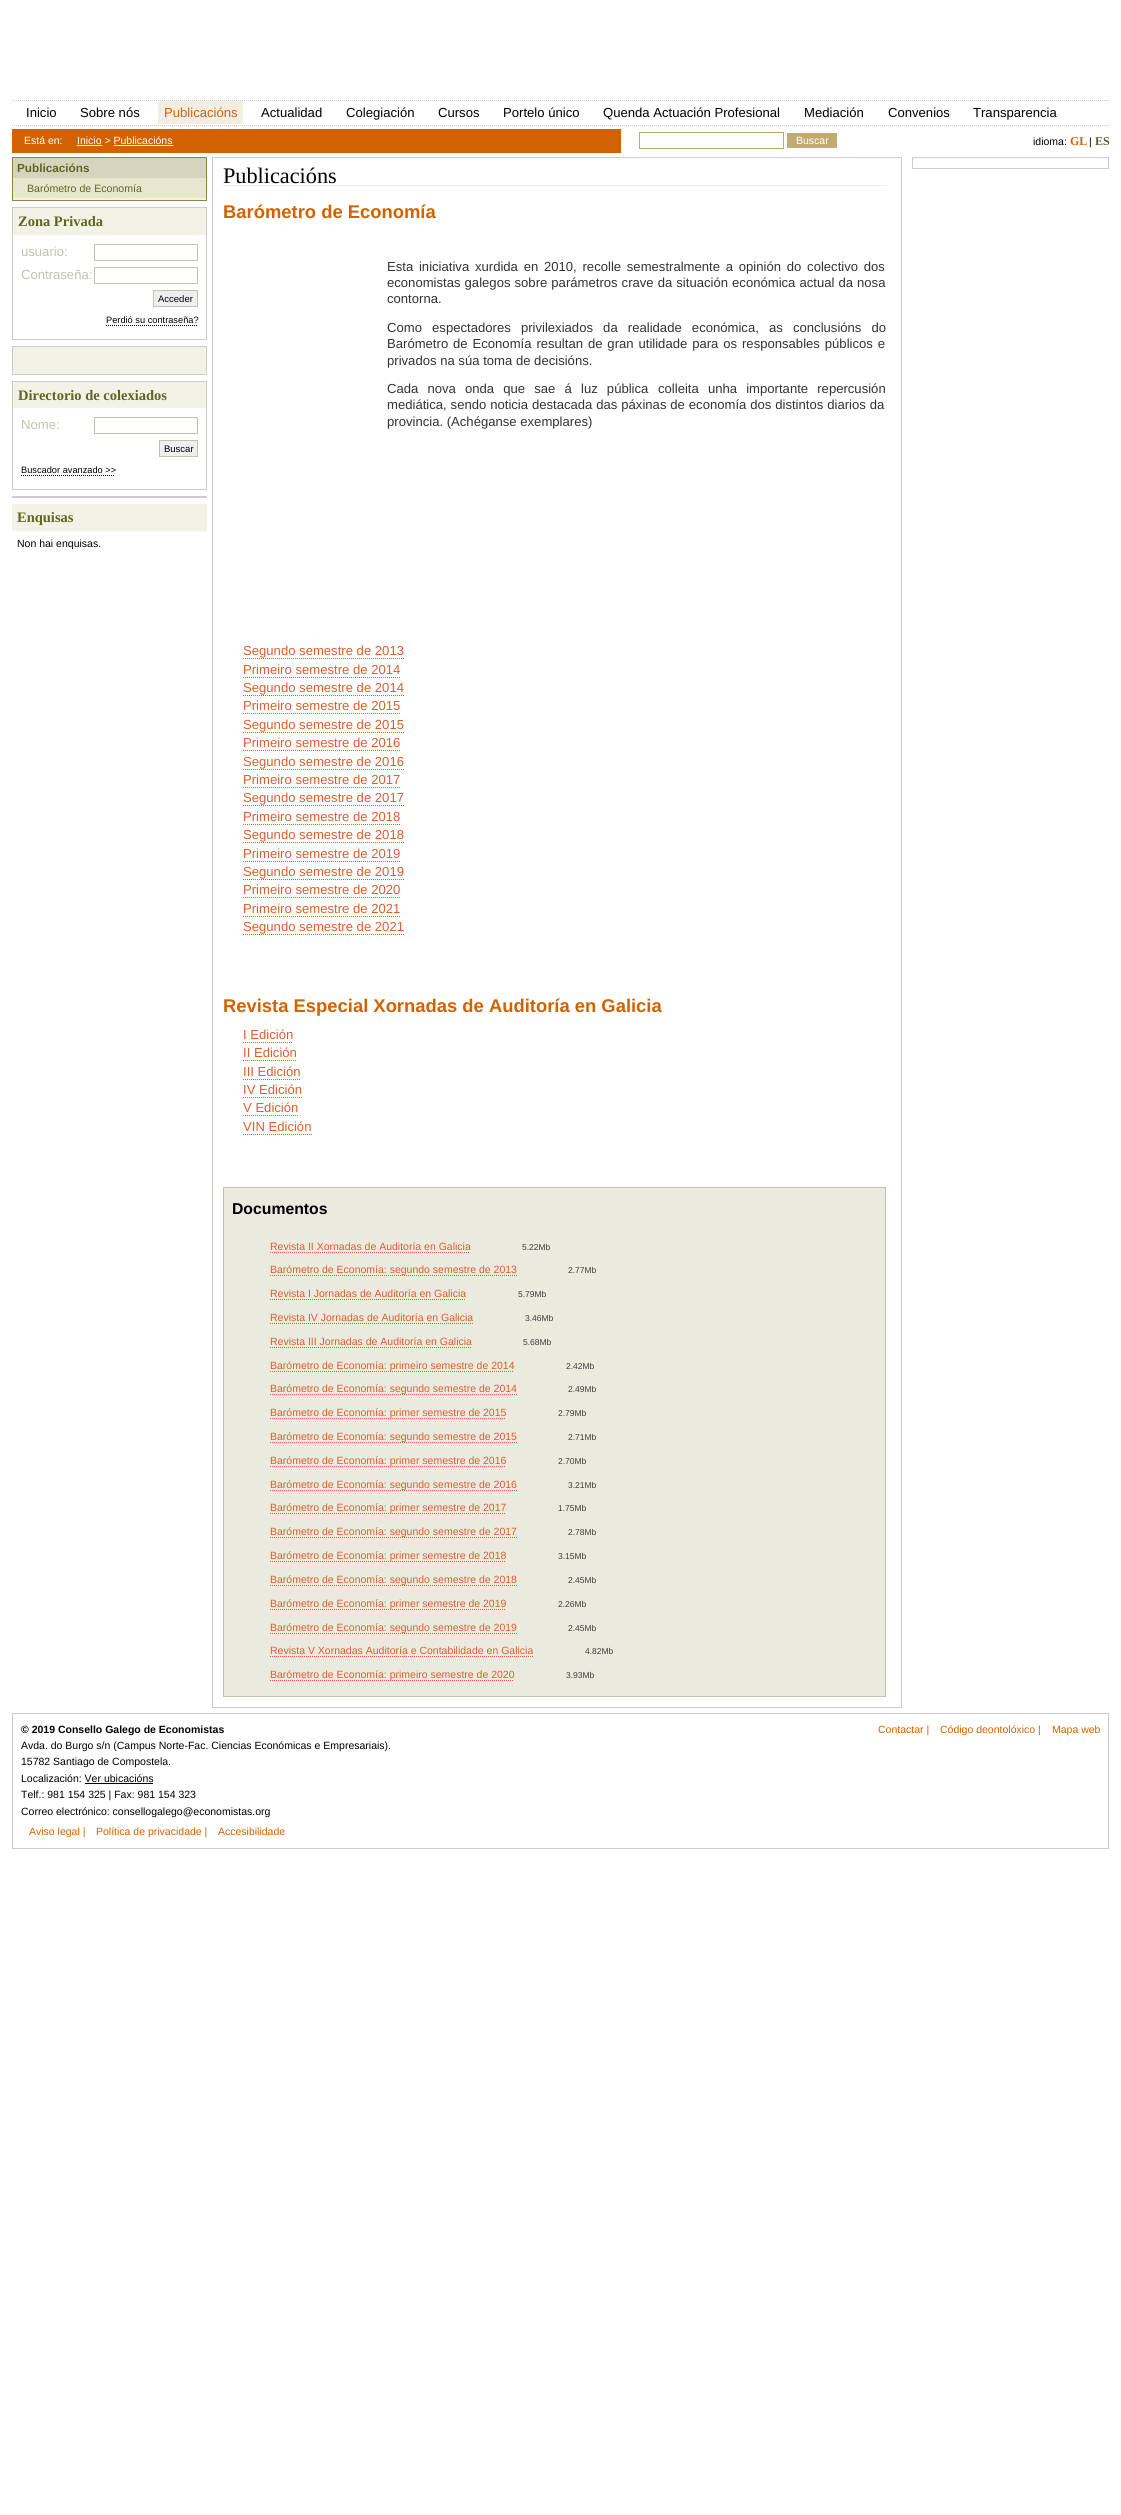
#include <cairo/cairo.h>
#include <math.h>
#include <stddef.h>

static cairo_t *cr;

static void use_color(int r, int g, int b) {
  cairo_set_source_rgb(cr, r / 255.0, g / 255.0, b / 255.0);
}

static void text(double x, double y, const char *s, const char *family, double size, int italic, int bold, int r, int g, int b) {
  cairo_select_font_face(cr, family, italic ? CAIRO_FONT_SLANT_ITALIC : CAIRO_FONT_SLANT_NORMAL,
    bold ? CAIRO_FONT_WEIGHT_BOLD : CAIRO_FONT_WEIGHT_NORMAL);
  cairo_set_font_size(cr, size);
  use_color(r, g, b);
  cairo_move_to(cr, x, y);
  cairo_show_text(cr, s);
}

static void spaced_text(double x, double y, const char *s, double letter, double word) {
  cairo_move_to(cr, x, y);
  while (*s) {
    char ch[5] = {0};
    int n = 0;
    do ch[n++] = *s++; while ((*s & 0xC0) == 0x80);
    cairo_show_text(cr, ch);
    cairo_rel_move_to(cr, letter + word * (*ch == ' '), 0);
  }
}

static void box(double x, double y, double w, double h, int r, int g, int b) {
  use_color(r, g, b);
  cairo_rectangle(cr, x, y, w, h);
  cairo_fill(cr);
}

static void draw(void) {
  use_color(255, 255, 255);
  cairo_paint(cr);
  cairo_new_path(cr);
  cairo_move_to(cr, 12, 100.5);
  cairo_line_to(cr, 1109, 100.5);
  use_color(204, 204, 204);
  cairo_set_line_width(cr, 1);
  cairo_set_dash(cr, (double[]){1, 1}, 2, 0);
  cairo_stroke(cr);
  cairo_new_path(cr);
  cairo_move_to(cr, 12, 125.5);
  cairo_line_to(cr, 1109, 125.5);
  cairo_stroke(cr);
  box(158, 101, 85, 23, 244, 238, 226);
  box(12, 129, 609, 24, 210, 97, 0);
  box(77, 145, 25, 1, 255, 255, 255);
  box(114, 145, 59, 1, 255, 255, 255);
  cairo_rectangle(cr, 639.5, 132.5, 144, 16);
  use_color(195, 170, 114);
  cairo_set_dash(cr, NULL, 0, 0);
  cairo_stroke(cr);
  box(787, 133, 50, 15, 195, 170, 114);
  cairo_rectangle(cr, 12.5, 157.5, 194, 43);
  use_color(135, 133, 69);
  cairo_stroke(cr);
  box(13, 158, 193, 20, 213, 213, 189);
  box(13, 198, 193, 2, 242, 242, 230);
  box(13, 178, 193, 20, 231, 231, 205);
  cairo_rectangle(cr, 12.5, 207.5, 194, 132);
  use_color(204, 204, 204);
  cairo_stroke(cr);
  box(13, 208, 193, 27, 242, 242, 230);
  cairo_rectangle(cr, 94.5, 244.5, 103, 16);
  use_color(196, 194, 171);
  cairo_stroke(cr);
  cairo_rectangle(cr, 94.5, 267.5, 103, 16);
  cairo_stroke(cr);
  use_color(239, 239, 239);
  cairo_rectangle(cr, 153.5, 290.5, 44, 16);
  cairo_fill_preserve(cr);
  use_color(196, 194, 171);
  cairo_stroke(cr);
  cairo_new_path(cr);
  cairo_move_to(cr, 106, 325.5);
  cairo_line_to(cr, 198, 325.5);
  use_color(0, 0, 0);
  cairo_set_dash(cr, (double[]){1, 1}, 2, 0);
  cairo_stroke(cr);
  cairo_rectangle(cr, 12.5, 346.5, 194, 28);
  use_color(204, 204, 204);
  cairo_set_dash(cr, NULL, 0, 0);
  cairo_stroke(cr);
  box(13, 347, 193, 27, 242, 242, 230);
  cairo_rectangle(cr, 12.5, 381.5, 194, 108);
  use_color(204, 204, 204);
  cairo_stroke(cr);
  box(13, 382, 193, 26, 242, 242, 230);
  cairo_rectangle(cr, 94.5, 417.5, 103, 16);
  use_color(196, 194, 171);
  cairo_stroke(cr);
  use_color(239, 239, 239);
  cairo_rectangle(cr, 159.5, 440.5, 38, 16);
  cairo_fill_preserve(cr);
  use_color(196, 194, 171);
  cairo_stroke(cr);
  cairo_new_path(cr);
  cairo_move_to(cr, 21, 475.5);
  cairo_line_to(cr, 115, 475.5);
  use_color(0, 0, 0);
  cairo_set_dash(cr, (double[]){1, 1}, 2, 0);
  cairo_stroke(cr);
  box(12, 496, 195, 2, 204, 204, 204);
  box(12, 504, 195, 27, 242, 242, 230);
  cairo_rectangle(cr, 212.5, 157.5, 689, 1550);
  use_color(204, 204, 204);
  cairo_set_dash(cr, NULL, 0, 0);
  cairo_stroke(cr);
  box(223, 185, 663, 1, 238, 238, 238);
  cairo_new_path(cr);
  cairo_move_to(cr, 243, 658.5);
  cairo_line_to(cr, 404, 658.5);
  use_color(219, 93, 49);
  cairo_set_dash(cr, (double[]){1, 1}, 2, 0);
  cairo_stroke(cr);
  cairo_new_path(cr);
  cairo_move_to(cr, 243, 677.5);
  cairo_line_to(cr, 400, 677.5);
  cairo_stroke(cr);
  cairo_new_path(cr);
  cairo_move_to(cr, 243, 695.5);
  cairo_line_to(cr, 404, 695.5);
  cairo_stroke(cr);
  cairo_new_path(cr);
  cairo_move_to(cr, 243, 713.5);
  cairo_line_to(cr, 400, 713.5);
  cairo_stroke(cr);
  cairo_new_path(cr);
  cairo_move_to(cr, 243, 732.5);
  cairo_line_to(cr, 404, 732.5);
  cairo_stroke(cr);
  cairo_new_path(cr);
  cairo_move_to(cr, 243, 750.5);
  cairo_line_to(cr, 400, 750.5);
  cairo_stroke(cr);
  cairo_new_path(cr);
  cairo_move_to(cr, 243, 769.5);
  cairo_line_to(cr, 404, 769.5);
  cairo_stroke(cr);
  cairo_new_path(cr);
  cairo_move_to(cr, 243, 787.5);
  cairo_line_to(cr, 400, 787.5);
  cairo_stroke(cr);
  cairo_new_path(cr);
  cairo_move_to(cr, 243, 805.5);
  cairo_line_to(cr, 404, 805.5);
  cairo_stroke(cr);
  cairo_new_path(cr);
  cairo_move_to(cr, 243, 824.5);
  cairo_line_to(cr, 400, 824.5);
  cairo_stroke(cr);
  cairo_new_path(cr);
  cairo_move_to(cr, 243, 842.5);
  cairo_line_to(cr, 404, 842.5);
  cairo_stroke(cr);
  cairo_new_path(cr);
  cairo_move_to(cr, 243, 861.5);
  cairo_line_to(cr, 400, 861.5);
  cairo_stroke(cr);
  cairo_new_path(cr);
  cairo_move_to(cr, 243, 879.5);
  cairo_line_to(cr, 404, 879.5);
  cairo_stroke(cr);
  cairo_new_path(cr);
  cairo_move_to(cr, 243, 897.5);
  cairo_line_to(cr, 400, 897.5);
  cairo_stroke(cr);
  cairo_new_path(cr);
  cairo_move_to(cr, 243, 916.5);
  cairo_line_to(cr, 400, 916.5);
  cairo_stroke(cr);
  cairo_new_path(cr);
  cairo_move_to(cr, 243, 934.5);
  cairo_line_to(cr, 404, 934.5);
  cairo_stroke(cr);
  cairo_new_path(cr);
  cairo_move_to(cr, 243, 1042.5);
  cairo_line_to(cr, 293, 1042.5);
  cairo_stroke(cr);
  cairo_new_path(cr);
  cairo_move_to(cr, 243, 1060.5);
  cairo_line_to(cr, 297, 1060.5);
  cairo_stroke(cr);
  cairo_new_path(cr);
  cairo_move_to(cr, 243, 1079.5);
  cairo_line_to(cr, 301, 1079.5);
  cairo_stroke(cr);
  cairo_new_path(cr);
  cairo_move_to(cr, 243, 1097.5);
  cairo_line_to(cr, 302, 1097.5);
  cairo_stroke(cr);
  cairo_new_path(cr);
  cairo_move_to(cr, 243, 1115.5);
  cairo_line_to(cr, 298, 1115.5);
  cairo_stroke(cr);
  cairo_new_path(cr);
  cairo_move_to(cr, 243, 1134.5);
  cairo_line_to(cr, 312, 1134.5);
  cairo_stroke(cr);
  use_color(235, 234, 223);
  cairo_rectangle(cr, 223.5, 1187.5, 662, 509);
  cairo_fill_preserve(cr);
  use_color(196, 194, 171);
  cairo_set_dash(cr, NULL, 0, 0);
  cairo_stroke(cr);
  cairo_new_path(cr);
  cairo_move_to(cr, 270, 1252.5);
  cairo_line_to(cr, 470, 1252.5);
  use_color(219, 93, 49);
  cairo_set_dash(cr, (double[]){1, 1}, 2, 0);
  cairo_stroke(cr);
  cairo_new_path(cr);
  cairo_move_to(cr, 270, 1275.5);
  cairo_line_to(cr, 517, 1275.5);
  cairo_stroke(cr);
  cairo_new_path(cr);
  cairo_move_to(cr, 270, 1299.5);
  cairo_line_to(cr, 466, 1299.5);
  cairo_stroke(cr);
  cairo_new_path(cr);
  cairo_move_to(cr, 270, 1323.5);
  cairo_line_to(cr, 473, 1323.5);
  cairo_stroke(cr);
  cairo_new_path(cr);
  cairo_move_to(cr, 270, 1347.5);
  cairo_line_to(cr, 472, 1347.5);
  cairo_stroke(cr);
  cairo_new_path(cr);
  cairo_move_to(cr, 270, 1371.5);
  cairo_line_to(cr, 514, 1371.5);
  cairo_stroke(cr);
  cairo_new_path(cr);
  cairo_move_to(cr, 270, 1394.5);
  cairo_line_to(cr, 517, 1394.5);
  cairo_stroke(cr);
  cairo_new_path(cr);
  cairo_move_to(cr, 270, 1418.5);
  cairo_line_to(cr, 506, 1418.5);
  cairo_stroke(cr);
  cairo_new_path(cr);
  cairo_move_to(cr, 270, 1442.5);
  cairo_line_to(cr, 517, 1442.5);
  cairo_stroke(cr);
  cairo_new_path(cr);
  cairo_move_to(cr, 270, 1466.5);
  cairo_line_to(cr, 506, 1466.5);
  cairo_stroke(cr);
  cairo_new_path(cr);
  cairo_move_to(cr, 270, 1490.5);
  cairo_line_to(cr, 517, 1490.5);
  cairo_stroke(cr);
  cairo_new_path(cr);
  cairo_move_to(cr, 270, 1513.5);
  cairo_line_to(cr, 506, 1513.5);
  cairo_stroke(cr);
  cairo_new_path(cr);
  cairo_move_to(cr, 270, 1537.5);
  cairo_line_to(cr, 517, 1537.5);
  cairo_stroke(cr);
  cairo_new_path(cr);
  cairo_move_to(cr, 270, 1561.5);
  cairo_line_to(cr, 506, 1561.5);
  cairo_stroke(cr);
  cairo_new_path(cr);
  cairo_move_to(cr, 270, 1585.5);
  cairo_line_to(cr, 517, 1585.5);
  cairo_stroke(cr);
  cairo_new_path(cr);
  cairo_move_to(cr, 270, 1609.5);
  cairo_line_to(cr, 506, 1609.5);
  cairo_stroke(cr);
  cairo_new_path(cr);
  cairo_move_to(cr, 270, 1633.5);
  cairo_line_to(cr, 517, 1633.5);
  cairo_stroke(cr);
  cairo_new_path(cr);
  cairo_move_to(cr, 270, 1656.5);
  cairo_line_to(cr, 533, 1656.5);
  cairo_stroke(cr);
  cairo_new_path(cr);
  cairo_move_to(cr, 270, 1680.5);
  cairo_line_to(cr, 514, 1680.5);
  cairo_stroke(cr);
  cairo_rectangle(cr, 912.5, 157.5, 196, 11);
  use_color(204, 204, 204);
  cairo_set_dash(cr, NULL, 0, 0);
  cairo_stroke(cr);
  cairo_rectangle(cr, 12.5, 1713.5, 1096, 135);
  cairo_stroke(cr);
  box(85, 1783, 68, 1, 0, 0, 0);
  text(26, 117, "Inicio", "Liberation Sans", 13.1, 0, 0, 0, 0, 0);
  text(80, 117, "Sobre nós", "Liberation Sans", 13.1, 0, 0, 0, 0, 0);
  text(164, 117, "Publicacións", "Liberation Sans", 13.1, 0, 0, 210, 97, 0);
  text(261, 117, "Actualidad", "Liberation Sans", 13.1, 0, 0, 0, 0, 0);
  text(346, 117, "Colegiación", "Liberation Sans", 13.1, 0, 0, 0, 0, 0);
  text(438, 117, "Cursos", "Liberation Sans", 13.1, 0, 0, 0, 0, 0);
  text(503, 117, "Portelo único", "Liberation Sans", 13.1, 0, 0, 0, 0, 0);
  text(603, 117, "Quenda Actuación Profesional", "Liberation Sans", 13.1, 0, 0, 0, 0, 0);
  text(804, 117, "Mediación", "Liberation Sans", 13.1, 0, 0, 0, 0, 0);
  text(888, 117, "Convenios", "Liberation Sans", 13.1, 0, 0, 0, 0, 0);
  text(973, 117, "Transparencia", "Liberation Sans", 13.1, 0, 0, 0, 0, 0);
  text(24, 144, "Está en:", "Liberation Sans", 10.5, 0, 0, 255, 255, 255);
  text(77, 144, "Inicio > Publicacións", "Liberation Sans", 10.5, 0, 0, 255, 255, 255);
  text(796, 144, "Buscar", "Liberation Sans", 10.5, 0, 0, 255, 255, 255);
  text(1033, 145, "idioma:", "Liberation Sans", 10.5, 0, 0, 0, 0, 0);
  text(1070, 145, "GL", "Liberation Serif", 12, 0, 1, 210, 97, 0);
  text(1089, 145, "|", "Liberation Sans", 10.5, 0, 0, 0, 0, 0);
  text(1095, 145, "ES", "Liberation Serif", 12, 0, 1, 95, 94, 58);
  text(17, 172, "Publicacións", "Liberation Sans", 11.75, 0, 1, 95, 101, 35);
  text(27, 192, "Barómetro de Economía", "Liberation Sans", 10.6, 0, 0, 95, 101, 35);
  text(18, 226, "Zona Privada", "Liberation Serif", 14.5, 0, 1, 95, 101, 35);
  text(21, 256, "usuario:", "Liberation Sans", 13.1, 0, 0, 196, 194, 171);
  text(21, 279, "Contraseña:", "Liberation Sans", 13.1, 0, 0, 196, 194, 171);
  text(158, 302, "Acceder", "Liberation Sans", 9.5, 0, 0, 0, 0, 0);
  text(106, 323, "Perdió su contraseña?", "Liberation Sans", 9.25, 0, 0, 0, 0, 0);
  text(18, 400, "Directorio de colexiados", "Liberation Serif", 14.5, 0, 1, 95, 101, 35);
  text(21, 429, "Nome:", "Liberation Sans", 13.1, 0, 0, 196, 194, 171);
  text(164, 452, "Buscar", "Liberation Sans", 9.5, 0, 0, 0, 0, 0);
  text(21, 473, "Buscador avanzado >>", "Liberation Sans", 9.25, 0, 0, 0, 0, 0);
  text(17, 522, "Enquisas", "Liberation Serif", 14.5, 0, 1, 95, 101, 35);
  text(17, 547, "Non hai enquisas.", "Liberation Sans", 10.5, 0, 0, 0, 0, 0);
  text(223, 183, "Publicacións", "Liberation Serif", 22.25, 0, 0, 0, 0, 0);
  text(223, 218, "Barómetro de Economía", "Liberation Sans", 18.4, 0, 1, 210, 97, 0);
  cairo_select_font_face(cr, "Liberation Sans", CAIRO_FONT_SLANT_NORMAL, CAIRO_FONT_WEIGHT_NORMAL);
  cairo_set_font_size(cr, 13.1);
  use_color(51, 51, 51);
  spaced_text(387, 271, "Esta iniciativa xurdida en 2010, recolle semestralmente a opinión do colectivo dos", 0, 2.1);
  spaced_text(387, 287, "economistas galegos sobre parámetros crave da situación económica actual da nosa", 0, 0.4);
  text(387, 303, "contorna.", "Liberation Sans", 13.1, 0, 0, 51, 51, 51);
  spaced_text(387, 332, "Como espectadores privilexiados da realidade económica, as conclusións do", 0, 6.5);
  spaced_text(387, 348, "Barómetro de Economía resultan de gran utilidade para os responsables públicos e", 0, 1.25);
  text(387, 365, "privados na súa toma de decisións.", "Liberation Sans", 13.1, 0, 0, 51, 51, 51);
  spaced_text(387, 393, "Cada nova onda que sae á luz pública", 0, 5.5);
  spaced_text(658, 393, "colleita unha importante repercusión", 0, 5.5);
  spaced_text(387, 409, "mediática, sendo noticia destacada das páxinas de economía dos distintos diarios da", 0, 0.25);
  text(387, 426, "provincia. (Achéganse exemplares)", "Liberation Sans", 13.1, 0, 0, 51, 51, 51);
  text(243, 655, "Segundo semestre de 2013", "Liberation Sans", 13.1, 0, 0, 219, 93, 49);
  text(243, 674, "Primeiro semestre de 2014", "Liberation Sans", 13.1, 0, 0, 219, 93, 49);
  text(243, 692, "Segundo semestre de 2014", "Liberation Sans", 13.1, 0, 0, 219, 93, 49);
  text(243, 710, "Primeiro semestre de 2015", "Liberation Sans", 13.1, 0, 0, 219, 93, 49);
  text(243, 729, "Segundo semestre de 2015", "Liberation Sans", 13.1, 0, 0, 219, 93, 49);
  text(243, 747, "Primeiro semestre de 2016", "Liberation Sans", 13.1, 0, 0, 219, 93, 49);
  text(243, 766, "Segundo semestre de 2016", "Liberation Sans", 13.1, 0, 0, 219, 93, 49);
  text(243, 784, "Primeiro semestre de 2017", "Liberation Sans", 13.1, 0, 0, 219, 93, 49);
  text(243, 802, "Segundo semestre de 2017", "Liberation Sans", 13.1, 0, 0, 219, 93, 49);
  text(243, 821, "Primeiro semestre de 2018", "Liberation Sans", 13.1, 0, 0, 219, 93, 49);
  text(243, 839, "Segundo semestre de 2018", "Liberation Sans", 13.1, 0, 0, 219, 93, 49);
  text(243, 858, "Primeiro semestre de 2019", "Liberation Sans", 13.1, 0, 0, 219, 93, 49);
  text(243, 876, "Segundo semestre de 2019", "Liberation Sans", 13.1, 0, 0, 219, 93, 49);
  text(243, 894, "Primeiro semestre de 2020", "Liberation Sans", 13.1, 0, 0, 219, 93, 49);
  text(243, 913, "Primeiro semestre de 2021", "Liberation Sans", 13.1, 0, 0, 219, 93, 49);
  text(243, 931, "Segundo semestre de 2021", "Liberation Sans", 13.1, 0, 0, 219, 93, 49);
  text(223, 1012, "Revista Especial Xornadas de Auditoría en Galicia", "Liberation Sans", 18.4, 0, 1, 210, 97, 0);
  text(243, 1039, "I Edición", "Liberation Sans", 13.1, 0, 0, 219, 93, 49);
  text(243, 1057, "II Edición", "Liberation Sans", 13.1, 0, 0, 219, 93, 49);
  text(243, 1076, "III Edición", "Liberation Sans", 13.1, 0, 0, 219, 93, 49);
  text(243, 1094, "IV Edición", "Liberation Sans", 13.1, 0, 0, 219, 93, 49);
  text(243, 1112, "V Edición", "Liberation Sans", 13.1, 0, 0, 219, 93, 49);
  text(243, 1131, "VIN Edición", "Liberation Sans", 13.1, 0, 0, 219, 93, 49);
  text(232, 1214, "Documentos", "Liberation Sans", 15.75, 0, 1, 0, 0, 0);
  text(270, 1250, "Revista II Xornadas de Auditoría en Galicia", "Liberation Sans", 10.5, 0, 0, 219, 93, 49);
  text(522, 1250, "5.22Mb", "Liberation Sans", 8.5, 0, 0, 61, 61, 61);
  text(270, 1273, "Barómetro de Economía: segundo semestre de 2013", "Liberation Sans", 10.5, 0, 0, 219, 93, 49);
  text(568, 1273, "2.77Mb", "Liberation Sans", 8.5, 0, 0, 61, 61, 61);
  text(270, 1297, "Revista I Jornadas de Auditoría en Galicia", "Liberation Sans", 10.5, 0, 0, 219, 93, 49);
  text(518, 1297, "5.79Mb", "Liberation Sans", 8.5, 0, 0, 61, 61, 61);
  text(270, 1321, "Revista IV Jornadas de Auditoría en Galicia", "Liberation Sans", 10.5, 0, 0, 219, 93, 49);
  text(525, 1321, "3.46Mb", "Liberation Sans", 8.5, 0, 0, 61, 61, 61);
  text(270, 1345, "Revista III Jornadas de Auditoría en Galicia", "Liberation Sans", 10.5, 0, 0, 219, 93, 49);
  text(523, 1345, "5.68Mb", "Liberation Sans", 8.5, 0, 0, 61, 61, 61);
  text(270, 1369, "Barómetro de Economía: primeiro semestre de 2014", "Liberation Sans", 10.5, 0, 0, 219, 93, 49);
  text(566, 1369, "2.42Mb", "Liberation Sans", 8.5, 0, 0, 61, 61, 61);
  text(270, 1392, "Barómetro de Economía: segundo semestre de 2014", "Liberation Sans", 10.5, 0, 0, 219, 93, 49);
  text(568, 1392, "2.49Mb", "Liberation Sans", 8.5, 0, 0, 61, 61, 61);
  text(270, 1416, "Barómetro de Economía: primer semestre de 2015", "Liberation Sans", 10.5, 0, 0, 219, 93, 49);
  text(558, 1416, "2.79Mb", "Liberation Sans", 8.5, 0, 0, 61, 61, 61);
  text(270, 1440, "Barómetro de Economía: segundo semestre de 2015", "Liberation Sans", 10.5, 0, 0, 219, 93, 49);
  text(568, 1440, "2.71Mb", "Liberation Sans", 8.5, 0, 0, 61, 61, 61);
  text(270, 1464, "Barómetro de Economía: primer semestre de 2016", "Liberation Sans", 10.5, 0, 0, 219, 93, 49);
  text(558, 1464, "2.70Mb", "Liberation Sans", 8.5, 0, 0, 61, 61, 61);
  text(270, 1488, "Barómetro de Economía: segundo semestre de 2016", "Liberation Sans", 10.5, 0, 0, 219, 93, 49);
  text(568, 1488, "3.21Mb", "Liberation Sans", 8.5, 0, 0, 61, 61, 61);
  text(270, 1511, "Barómetro de Economía: primer semestre de 2017", "Liberation Sans", 10.5, 0, 0, 219, 93, 49);
  text(558, 1511, "1.75Mb", "Liberation Sans", 8.5, 0, 0, 61, 61, 61);
  text(270, 1535, "Barómetro de Economía: segundo semestre de 2017", "Liberation Sans", 10.5, 0, 0, 219, 93, 49);
  text(568, 1535, "2.78Mb", "Liberation Sans", 8.5, 0, 0, 61, 61, 61);
  text(270, 1559, "Barómetro de Economía: primer semestre de 2018", "Liberation Sans", 10.5, 0, 0, 219, 93, 49);
  text(558, 1559, "3.15Mb", "Liberation Sans", 8.5, 0, 0, 61, 61, 61);
  text(270, 1583, "Barómetro de Economía: segundo semestre de 2018", "Liberation Sans", 10.5, 0, 0, 219, 93, 49);
  text(568, 1583, "2.45Mb", "Liberation Sans", 8.5, 0, 0, 61, 61, 61);
  text(270, 1607, "Barómetro de Economía: primer semestre de 2019", "Liberation Sans", 10.5, 0, 0, 219, 93, 49);
  text(558, 1607, "2.26Mb", "Liberation Sans", 8.5, 0, 0, 61, 61, 61);
  text(270, 1631, "Barómetro de Economía: segundo semestre de 2019", "Liberation Sans", 10.5, 0, 0, 219, 93, 49);
  text(568, 1631, "2.45Mb", "Liberation Sans", 8.5, 0, 0, 61, 61, 61);
  text(270, 1654, "Revista V Xornadas Auditoría e Contabilidade en Galicia", "Liberation Sans", 10.5, 0, 0, 219, 93, 49);
  text(585, 1654, "4.82Mb", "Liberation Sans", 8.5, 0, 0, 61, 61, 61);
  text(270, 1678, "Barómetro de Economía: primeiro semestre de 2020", "Liberation Sans", 10.5, 0, 0, 219, 93, 49);
  text(566, 1678, "3.93Mb", "Liberation Sans", 8.5, 0, 0, 61, 61, 61);
  text(21, 1733, "© 2019 Consello Galego de Economistas", "Liberation Sans", 10.5, 0, 1, 0, 0, 0);
  text(21, 1749, "Avda. do Burgo s/n (Campus Norte-Fac. Ciencias Económicas e Empresariais).", "Liberation Sans", 10.5, 0, 0, 0, 0, 0);
  text(21, 1765, "15782 Santiago de Compostela.", "Liberation Sans", 10.5, 0, 0, 0, 0, 0);
  text(21, 1782, "Localización: Ver ubicacións", "Liberation Sans", 10.5, 0, 0, 0, 0, 0);
  text(21, 1798, "Telf.: 981 154 325 | Fax: 981 154 323", "Liberation Sans", 10.5, 0, 0, 0, 0, 0);
  text(21, 1815, "Correo electrónico: consellogalego@economistas.org", "Liberation Sans", 10.5, 0, 0, 0, 0, 0);
  text(29, 1835, "Aviso legal |", "Liberation Sans", 10.5, 0, 0, 210, 97, 0);
  text(96, 1835, "Política de privacidade |", "Liberation Sans", 10.5, 0, 0, 210, 97, 0);
  text(218, 1835, "Accesibilidade", "Liberation Sans", 10.5, 0, 0, 210, 97, 0);
  text(878, 1733, "Contactar |", "Liberation Sans", 10.5, 0, 0, 210, 97, 0);
  text(940, 1733, "Código deontolóxico |", "Liberation Sans", 10.5, 0, 0, 210, 97, 0);
  text(1052, 1733, "Mapa web", "Liberation Sans", 10.5, 0, 0, 210, 97, 0);
}

int main(void) {
  cairo_surface_t *surface = cairo_image_surface_create(CAIRO_FORMAT_RGB24, 1121, 2515);
  cr = cairo_create(surface);
  cairo_font_options_t *options = cairo_font_options_create();
  cairo_font_options_set_hint_metrics(options, CAIRO_HINT_METRICS_OFF);
  cairo_font_options_set_hint_style(options, CAIRO_HINT_STYLE_NONE);
  cairo_set_font_options(cr, options);
  cairo_set_miter_limit(cr, 4);
  draw();
  cairo_surface_write_to_png(surface, "out.png");
  cairo_font_options_destroy(options);
  cairo_destroy(cr);
  cairo_surface_destroy(surface);
  return 0;
}
